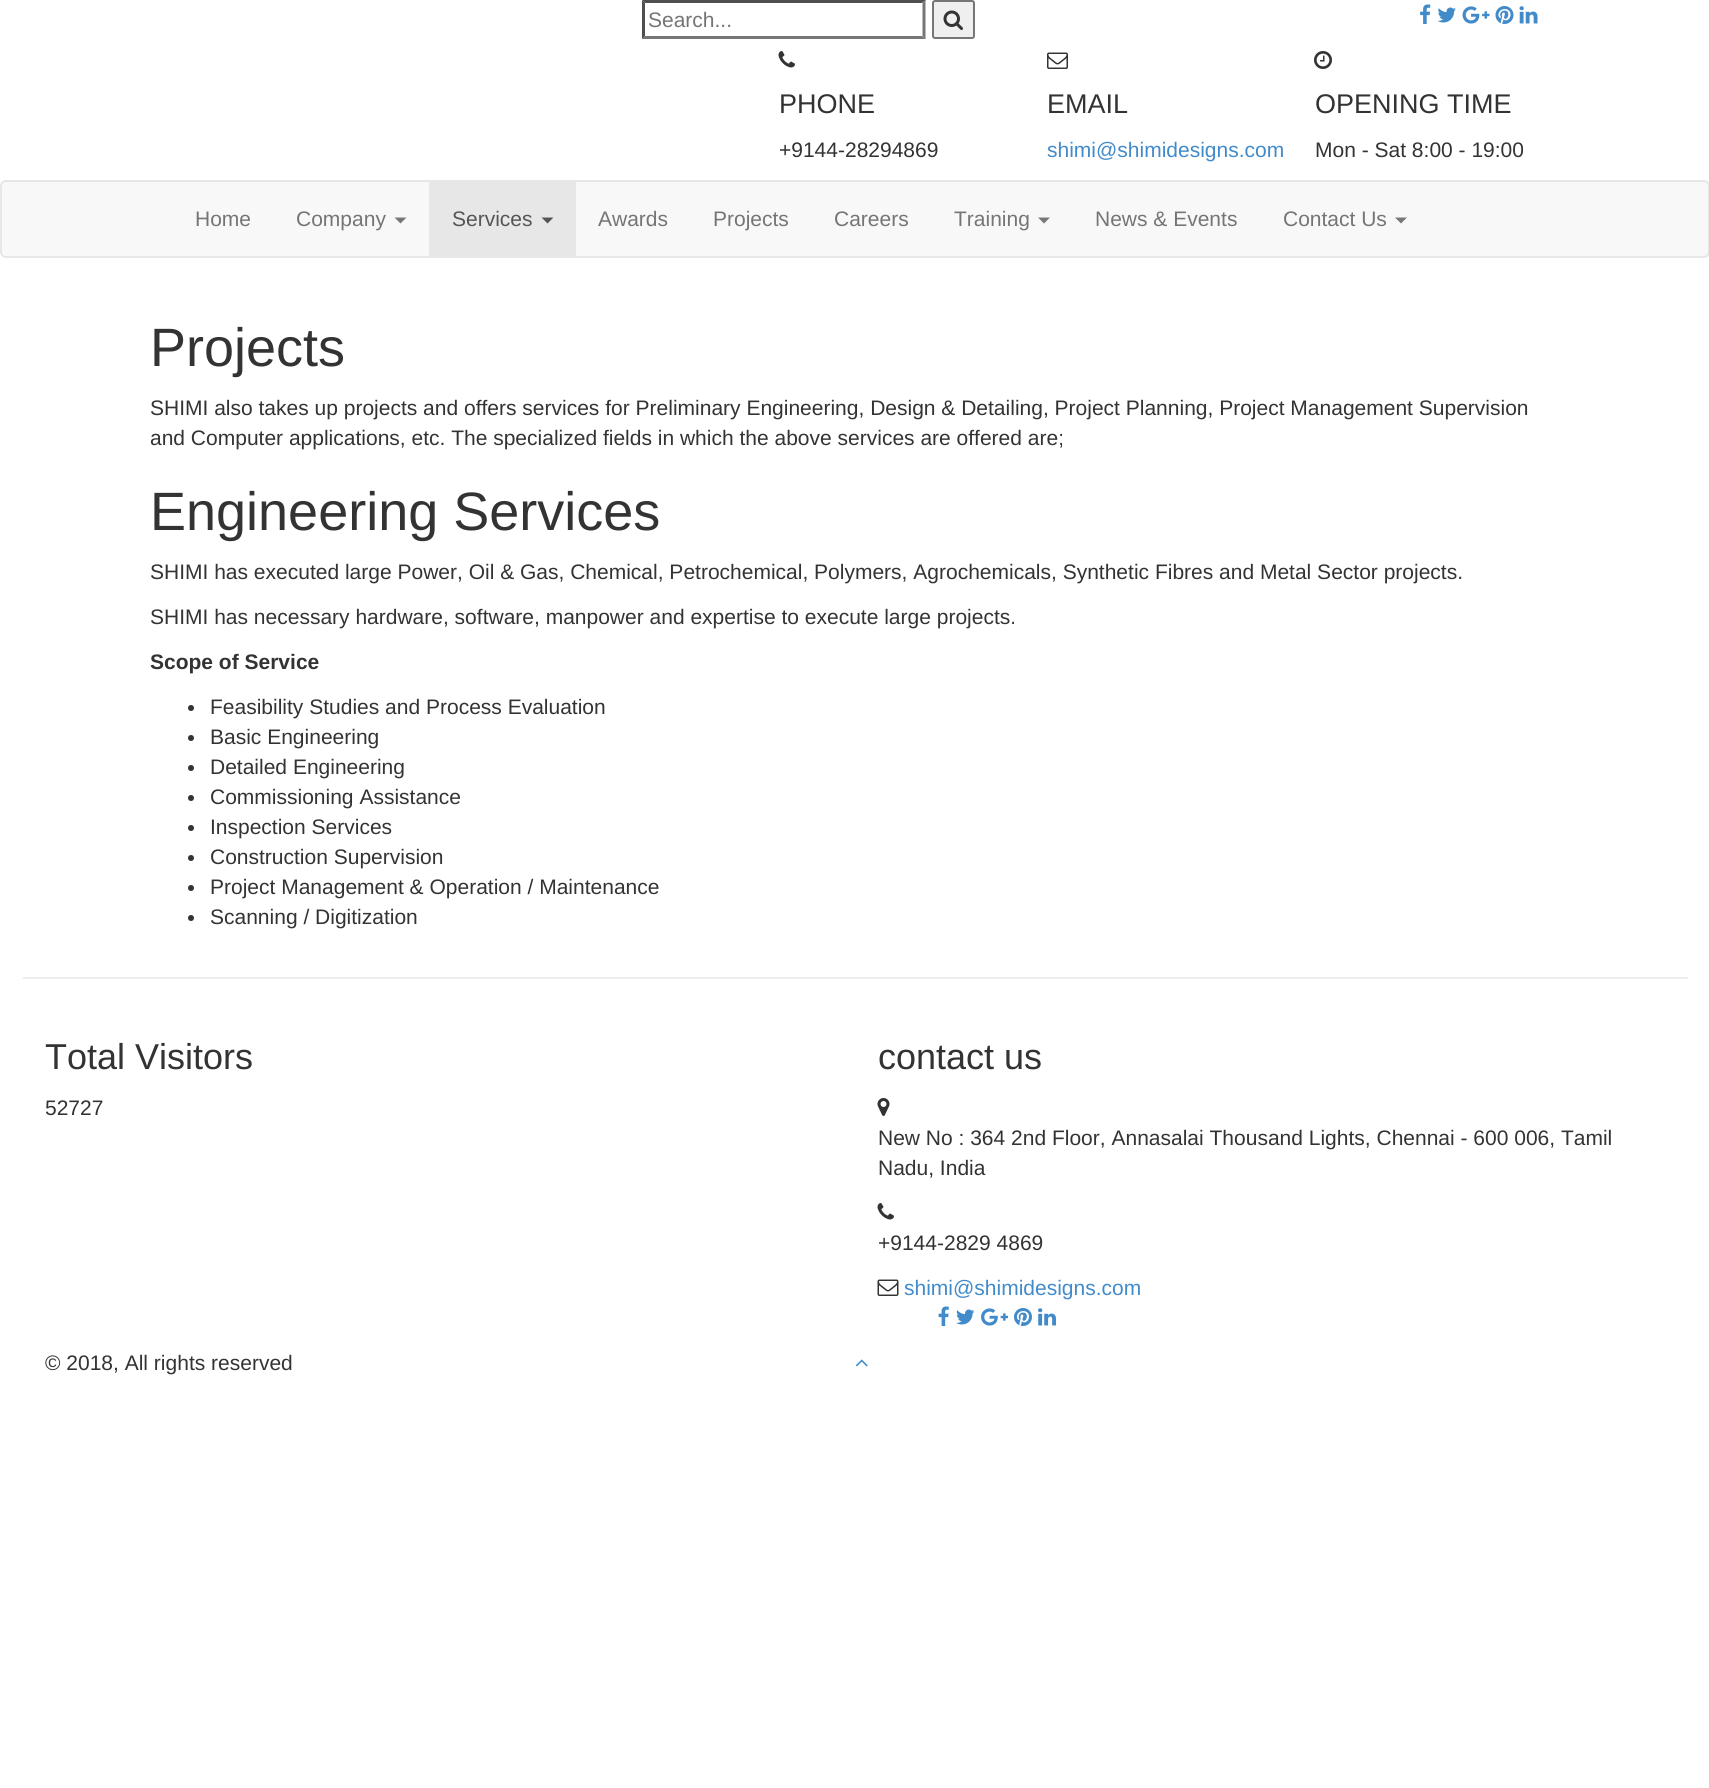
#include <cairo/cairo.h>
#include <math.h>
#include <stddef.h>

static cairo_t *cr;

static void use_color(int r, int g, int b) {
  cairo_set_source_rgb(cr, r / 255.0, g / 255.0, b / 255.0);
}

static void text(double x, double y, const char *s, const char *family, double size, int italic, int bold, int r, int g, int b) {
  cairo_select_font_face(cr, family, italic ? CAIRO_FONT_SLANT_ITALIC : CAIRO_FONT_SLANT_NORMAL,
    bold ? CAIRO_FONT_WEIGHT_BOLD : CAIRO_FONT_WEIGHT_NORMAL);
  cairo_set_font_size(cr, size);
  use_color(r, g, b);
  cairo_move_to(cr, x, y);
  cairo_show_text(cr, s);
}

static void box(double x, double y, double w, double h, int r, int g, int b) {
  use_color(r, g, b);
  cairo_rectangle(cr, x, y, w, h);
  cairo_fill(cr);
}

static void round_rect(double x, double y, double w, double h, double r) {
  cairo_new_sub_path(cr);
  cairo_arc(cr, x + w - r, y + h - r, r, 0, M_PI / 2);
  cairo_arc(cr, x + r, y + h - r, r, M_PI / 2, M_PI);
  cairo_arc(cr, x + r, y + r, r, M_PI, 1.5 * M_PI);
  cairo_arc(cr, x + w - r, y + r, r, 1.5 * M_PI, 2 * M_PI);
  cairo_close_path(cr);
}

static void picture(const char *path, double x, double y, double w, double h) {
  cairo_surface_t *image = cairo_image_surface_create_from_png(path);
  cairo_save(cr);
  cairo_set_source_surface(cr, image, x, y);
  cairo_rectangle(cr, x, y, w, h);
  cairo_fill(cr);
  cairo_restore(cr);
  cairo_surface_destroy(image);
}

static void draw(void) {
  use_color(255, 255, 255);
  cairo_paint(cr);
  use_color(79, 79, 79);
  cairo_new_path(cr);
  cairo_move_to(cr, 642, 0);
  cairo_line_to(cr, 926, 0);
  cairo_line_to(cr, 922, 3);
  cairo_line_to(cr, 645, 3);
  cairo_close_path(cr);
  cairo_fill(cr);
  use_color(118, 118, 118);
  cairo_new_path(cr);
  cairo_move_to(cr, 925.5, 0);
  cairo_line_to(cr, 925.5, 39);
  cairo_line_to(cr, 922.5, 36);
  cairo_line_to(cr, 922.5, 3);
  cairo_close_path(cr);
  cairo_fill(cr);
  cairo_new_path(cr);
  cairo_move_to(cr, 926, 39);
  cairo_line_to(cr, 642, 39);
  cairo_line_to(cr, 645, 36);
  cairo_line_to(cr, 922, 36);
  cairo_close_path(cr);
  cairo_fill(cr);
  use_color(79, 79, 79);
  cairo_new_path(cr);
  cairo_move_to(cr, 642, 39);
  cairo_line_to(cr, 642, 0);
  cairo_line_to(cr, 645, 3);
  cairo_line_to(cr, 645, 36);
  cairo_close_path(cr);
  cairo_fill(cr);
  use_color(239, 239, 239);
  round_rect(933, 1, 41, 37, 2);
  cairo_fill_preserve(cr);
  use_color(118, 118, 118);
  cairo_stroke(cr);
  picture("img_01.png", 943, 10, 20, 20);
  picture("img_02.png", 1420, 4, 11, 20);
  picture("img_03.png", 1437, 7, 19, 16);
  picture("img_04.png", 1462, 6, 28, 18);
  picture("img_05.png", 1495, 6, 19, 18);
  picture("img_06.png", 1519, 6, 19, 18);
  picture("img_07.png", 778, 51, 17, 17);
  picture("img_08.png", 1047, 52, 21, 17);
  picture("img_09.png", 1314, 51, 18, 18);
  use_color(248, 248, 248);
  round_rect(1, 181, 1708, 76, 5);
  cairo_fill_preserve(cr);
  use_color(231, 231, 231);
  cairo_stroke(cr);
  use_color(119, 119, 119);
  cairo_new_path(cr);
  cairo_move_to(cr, 394.5, 217.5);
  cairo_line_to(cr, 406.5, 217.5);
  cairo_line_to(cr, 400.5, 223.5);
  cairo_close_path(cr);
  cairo_fill(cr);
  box(429, 182, 147, 74, 231, 231, 231);
  use_color(85, 85, 85);
  cairo_new_path(cr);
  cairo_move_to(cr, 541.5, 217.5);
  cairo_line_to(cr, 553.5, 217.5);
  cairo_line_to(cr, 547.5, 223.5);
  cairo_close_path(cr);
  cairo_fill(cr);
  use_color(119, 119, 119);
  cairo_new_path(cr);
  cairo_move_to(cr, 1038, 217.5);
  cairo_line_to(cr, 1050, 217.5);
  cairo_line_to(cr, 1044, 223.5);
  cairo_close_path(cr);
  cairo_fill(cr);
  cairo_new_path(cr);
  cairo_move_to(cr, 1395, 217.5);
  cairo_line_to(cr, 1407, 217.5);
  cairo_line_to(cr, 1401, 223.5);
  cairo_close_path(cr);
  cairo_fill(cr);
  use_color(51, 51, 51);
  cairo_arc(cr, 191, 708, 3, 0, 2 * M_PI);
  cairo_fill(cr);
  cairo_arc(cr, 191, 738, 3, 0, 2 * M_PI);
  cairo_fill(cr);
  cairo_arc(cr, 191, 768, 3, 0, 2 * M_PI);
  cairo_fill(cr);
  cairo_arc(cr, 191, 798, 3, 0, 2 * M_PI);
  cairo_fill(cr);
  cairo_arc(cr, 191, 828, 3, 0, 2 * M_PI);
  cairo_fill(cr);
  cairo_arc(cr, 191, 858, 3, 0, 2 * M_PI);
  cairo_fill(cr);
  cairo_arc(cr, 191, 888, 3, 0, 2 * M_PI);
  cairo_fill(cr);
  cairo_arc(cr, 191, 918, 3, 0, 2 * M_PI);
  cairo_fill(cr);
  box(23, 977, 1665, 2, 238, 238, 238);
  picture("img_10.png", 877, 1098, 13, 18);
  picture("img_07.png", 877, 1203, 17, 17);
  picture("img_11.png", 877, 1279, 22, 17);
  picture("img_12.png", 938, 1306, 11, 20);
  picture("img_13.png", 956, 1309, 19, 16);
  picture("img_14.png", 981, 1308, 27, 18);
  picture("img_15.png", 1014, 1308, 18, 18);
  picture("img_16.png", 1038, 1308, 18, 18);
  picture("img_17.png", 855, 1359, 13, 8);
  text(648, 27, "Search...", "Liberation Sans", 21, 0, 0, 117, 117, 117);
  text(779, 113, "PHONE", "Liberation Sans", 27, 0, 0, 51, 51, 51);
  text(779, 157, "+9144-28294869", "Liberation Sans", 21, 0, 0, 51, 51, 51);
  text(1047, 113, "EMAIL", "Liberation Sans", 27, 0, 0, 51, 51, 51);
  text(1047, 157, "shimi@shimidesigns.com", "Liberation Sans", 21, 0, 0, 66, 139, 202);
  text(1315, 113, "OPENING TIME", "Liberation Sans", 27, 0, 0, 51, 51, 51);
  text(1315, 157, "Mon - Sat 8:00 - 19:00", "Liberation Sans", 21, 0, 0, 51, 51, 51);
  text(195, 226, "Home", "Liberation Sans", 21, 0, 0, 117, 117, 117);
  text(296, 226, "Company", "Liberation Sans", 21, 0, 0, 117, 117, 117);
  text(452, 226, "Services", "Liberation Sans", 21, 0, 0, 85, 85, 85);
  text(598, 226, "Awards", "Liberation Sans", 21, 0, 0, 117, 117, 117);
  text(713, 226, "Projects", "Liberation Sans", 21, 0, 0, 117, 117, 117);
  text(834, 226, "Careers", "Liberation Sans", 21, 0, 0, 117, 117, 117);
  text(954, 226, "Training", "Liberation Sans", 21, 0, 0, 117, 117, 117);
  text(1095, 226, "News & Events", "Liberation Sans", 21, 0, 0, 117, 117, 117);
  text(1283, 226, "Contact Us", "Liberation Sans", 21, 0, 0, 117, 117, 117);
  text(150, 366, "Projects", "Liberation Sans", 54, 0, 0, 51, 51, 51);
  text(150, 415, "SHIMI also takes up projects and offers services for Preliminary Engineering, Design & Detailing, Project Planning, Project Management Supervision", "Liberation Sans", 21, 0, 0, 51, 51, 51);
  text(150, 445, "and Computer applications, etc. The specialized fields in which the above services are offered are;", "Liberation Sans", 21, 0, 0, 51, 51, 51);
  text(150, 530, "Engineering Services", "Liberation Sans", 54, 0, 0, 51, 51, 51);
  text(150, 579, "SHIMI has executed large Power, Oil & Gas, Chemical, Petrochemical, Polymers, Agrochemicals, Synthetic Fibres and Metal Sector projects.", "Liberation Sans", 21, 0, 0, 51, 51, 51);
  text(150, 624, "SHIMI has necessary hardware, software, manpower and expertise to execute large projects.", "Liberation Sans", 21, 0, 0, 51, 51, 51);
  text(150, 669, "Scope of Service", "Liberation Sans", 21, 0, 1, 51, 51, 51);
  text(210, 714, "Feasibility Studies and Process Evaluation", "Liberation Sans", 21, 0, 0, 51, 51, 51);
  text(210, 744, "Basic Engineering", "Liberation Sans", 21, 0, 0, 51, 51, 51);
  text(210, 774, "Detailed Engineering", "Liberation Sans", 21, 0, 0, 51, 51, 51);
  text(210, 804, "Commissioning Assistance", "Liberation Sans", 21, 0, 0, 51, 51, 51);
  text(210, 834, "Inspection Services", "Liberation Sans", 21, 0, 0, 51, 51, 51);
  text(210, 864, "Construction Supervision", "Liberation Sans", 21, 0, 0, 51, 51, 51);
  text(210, 894, "Project Management & Operation / Maintenance", "Liberation Sans", 21, 0, 0, 51, 51, 51);
  text(210, 924, "Scanning / Digitization", "Liberation Sans", 21, 0, 0, 51, 51, 51);
  text(45, 1069, "Total Visitors", "Liberation Sans", 36, 0, 0, 51, 51, 51);
  text(45, 1115, "52727", "Liberation Sans", 21, 0, 0, 51, 51, 51);
  text(878, 1069, "contact us", "Liberation Sans", 36, 0, 0, 51, 51, 51);
  text(878, 1145, "New No : 364 2nd Floor, Annasalai Thousand Lights, Chennai - 600 006, Tamil", "Liberation Sans", 21, 0, 0, 51, 51, 51);
  text(878, 1175, "Nadu, India", "Liberation Sans", 21, 0, 0, 51, 51, 51);
  text(878, 1250, "+9144-2829 4869", "Liberation Sans", 21, 0, 0, 51, 51, 51);
  text(904, 1295, "shimi@shimidesigns.com", "Liberation Sans", 21, 0, 0, 66, 139, 202);
  text(45, 1370, "© 2018, All rights reserved", "Liberation Sans", 21, 0, 0, 51, 51, 51);
}

int main(void) {
  cairo_surface_t *surface = cairo_image_surface_create(CAIRO_FORMAT_RGB24, 1709, 1788);
  cr = cairo_create(surface);
  cairo_font_options_t *options = cairo_font_options_create();
  cairo_font_options_set_hint_metrics(options, CAIRO_HINT_METRICS_OFF);
  cairo_font_options_set_hint_style(options, CAIRO_HINT_STYLE_NONE);
  cairo_set_font_options(cr, options);
  cairo_set_miter_limit(cr, 4);
  draw();
  cairo_surface_write_to_png(surface, "out.png");
  cairo_font_options_destroy(options);
  cairo_destroy(cr);
  cairo_surface_destroy(surface);
  return 0;
}
